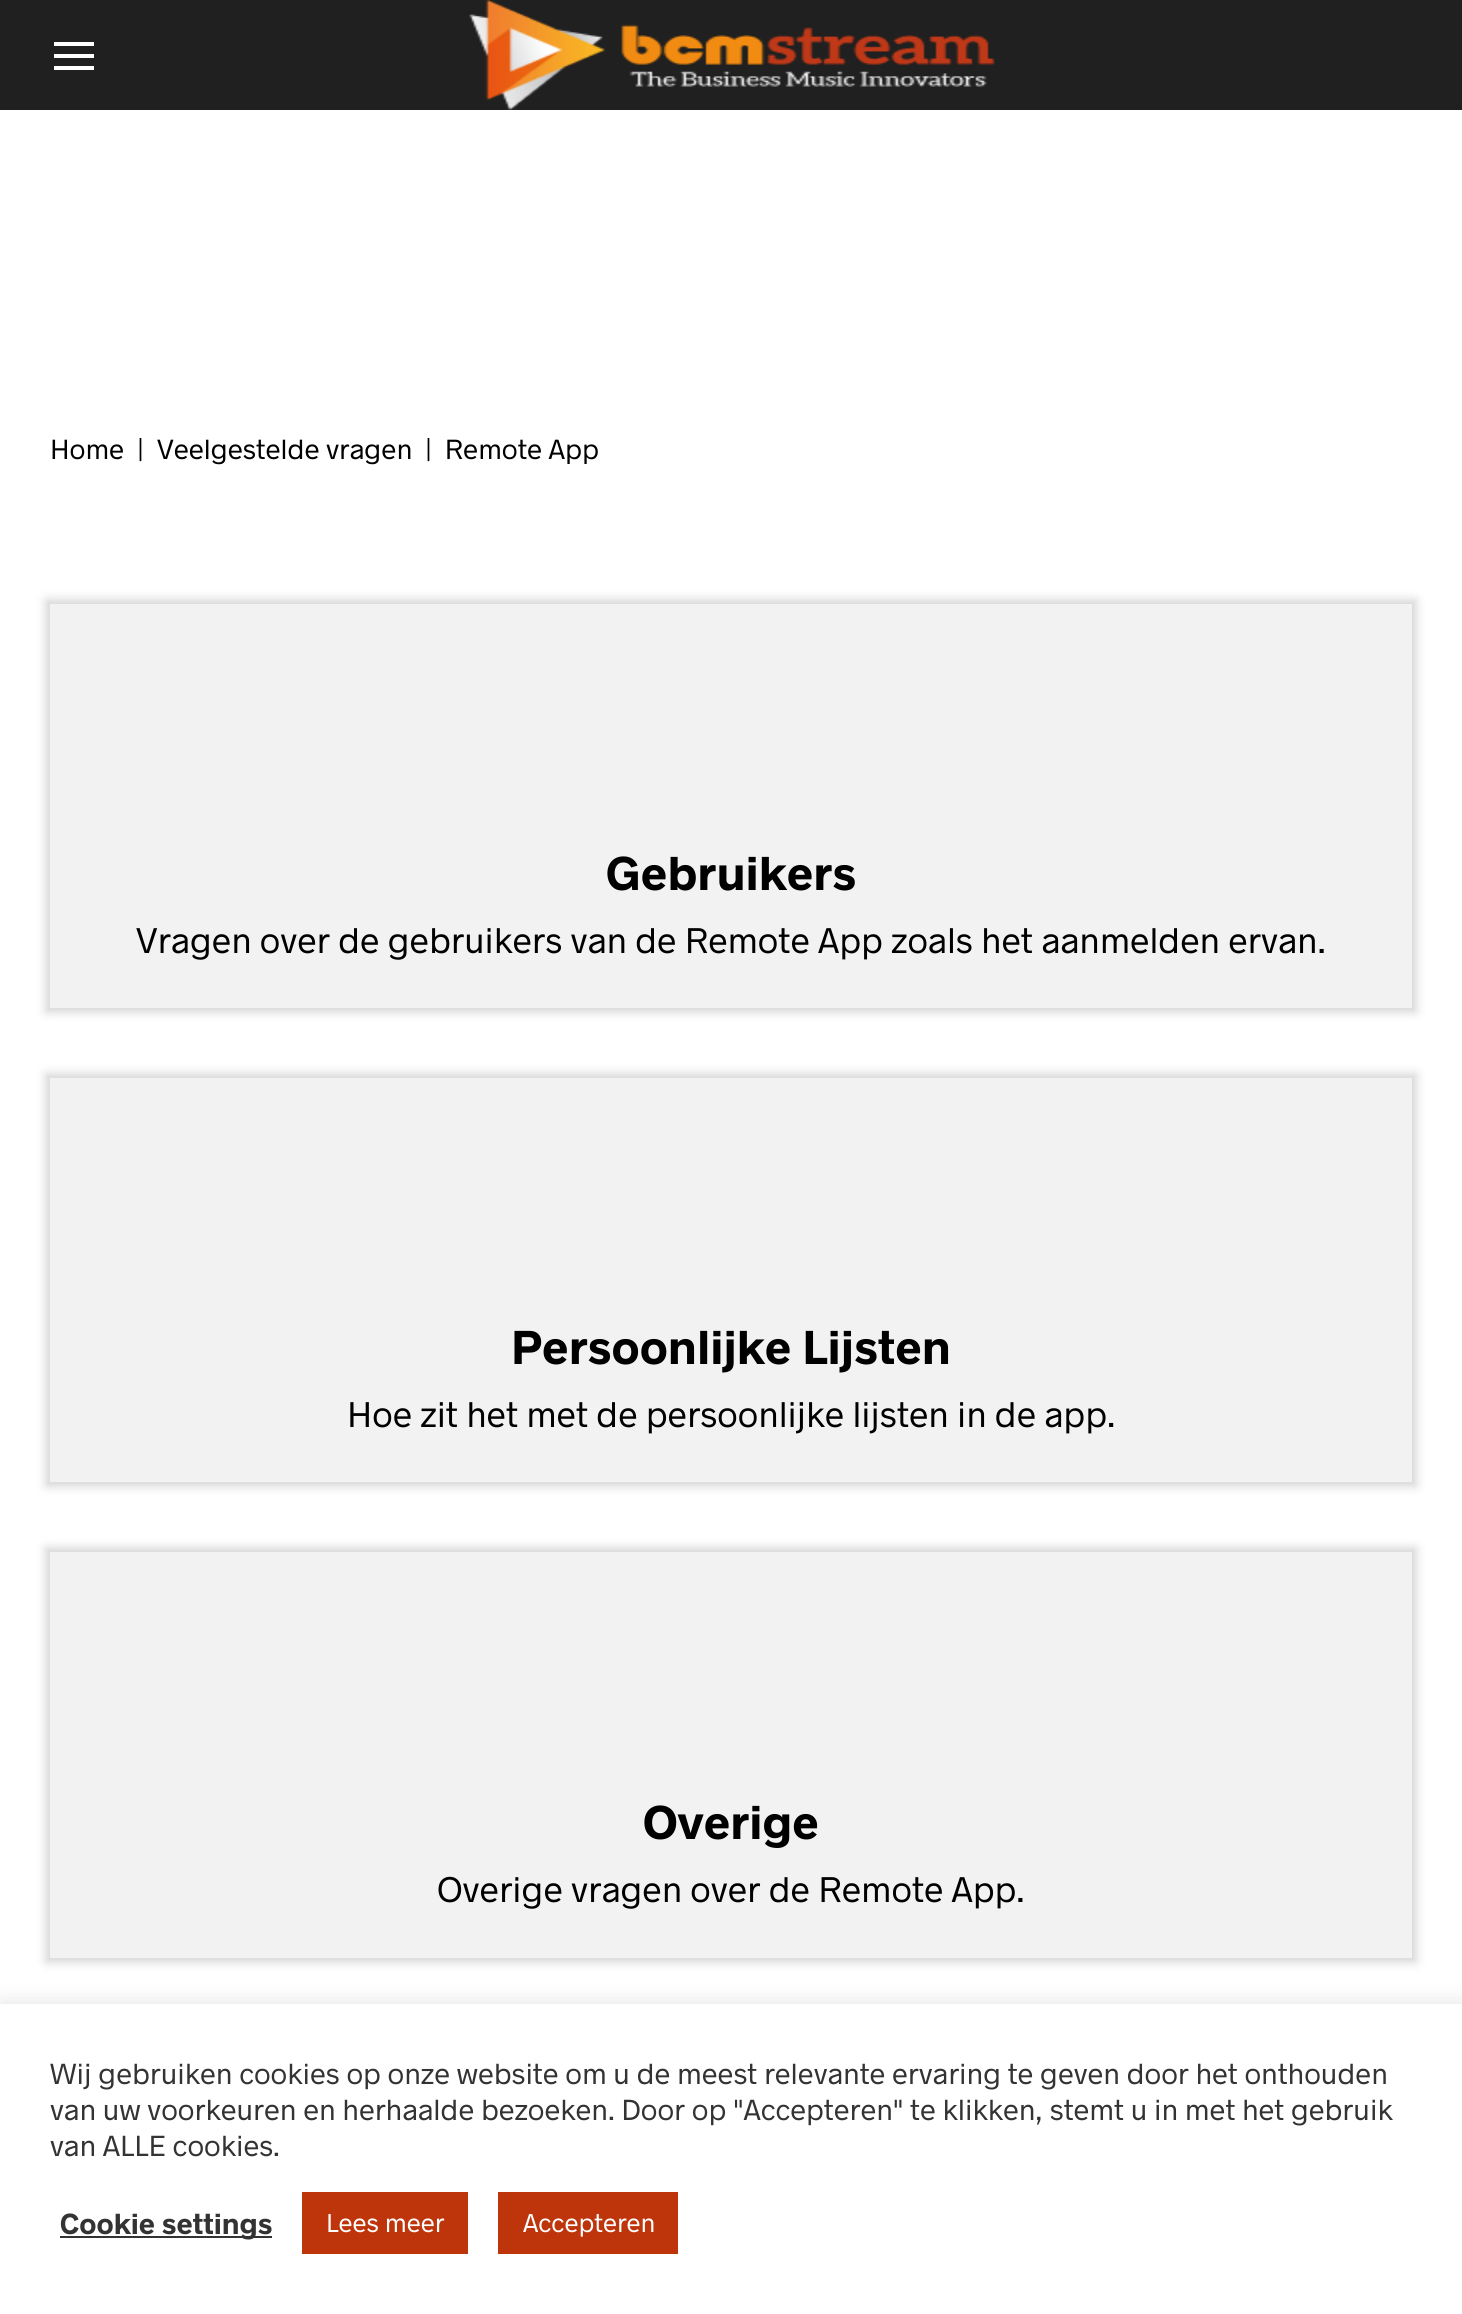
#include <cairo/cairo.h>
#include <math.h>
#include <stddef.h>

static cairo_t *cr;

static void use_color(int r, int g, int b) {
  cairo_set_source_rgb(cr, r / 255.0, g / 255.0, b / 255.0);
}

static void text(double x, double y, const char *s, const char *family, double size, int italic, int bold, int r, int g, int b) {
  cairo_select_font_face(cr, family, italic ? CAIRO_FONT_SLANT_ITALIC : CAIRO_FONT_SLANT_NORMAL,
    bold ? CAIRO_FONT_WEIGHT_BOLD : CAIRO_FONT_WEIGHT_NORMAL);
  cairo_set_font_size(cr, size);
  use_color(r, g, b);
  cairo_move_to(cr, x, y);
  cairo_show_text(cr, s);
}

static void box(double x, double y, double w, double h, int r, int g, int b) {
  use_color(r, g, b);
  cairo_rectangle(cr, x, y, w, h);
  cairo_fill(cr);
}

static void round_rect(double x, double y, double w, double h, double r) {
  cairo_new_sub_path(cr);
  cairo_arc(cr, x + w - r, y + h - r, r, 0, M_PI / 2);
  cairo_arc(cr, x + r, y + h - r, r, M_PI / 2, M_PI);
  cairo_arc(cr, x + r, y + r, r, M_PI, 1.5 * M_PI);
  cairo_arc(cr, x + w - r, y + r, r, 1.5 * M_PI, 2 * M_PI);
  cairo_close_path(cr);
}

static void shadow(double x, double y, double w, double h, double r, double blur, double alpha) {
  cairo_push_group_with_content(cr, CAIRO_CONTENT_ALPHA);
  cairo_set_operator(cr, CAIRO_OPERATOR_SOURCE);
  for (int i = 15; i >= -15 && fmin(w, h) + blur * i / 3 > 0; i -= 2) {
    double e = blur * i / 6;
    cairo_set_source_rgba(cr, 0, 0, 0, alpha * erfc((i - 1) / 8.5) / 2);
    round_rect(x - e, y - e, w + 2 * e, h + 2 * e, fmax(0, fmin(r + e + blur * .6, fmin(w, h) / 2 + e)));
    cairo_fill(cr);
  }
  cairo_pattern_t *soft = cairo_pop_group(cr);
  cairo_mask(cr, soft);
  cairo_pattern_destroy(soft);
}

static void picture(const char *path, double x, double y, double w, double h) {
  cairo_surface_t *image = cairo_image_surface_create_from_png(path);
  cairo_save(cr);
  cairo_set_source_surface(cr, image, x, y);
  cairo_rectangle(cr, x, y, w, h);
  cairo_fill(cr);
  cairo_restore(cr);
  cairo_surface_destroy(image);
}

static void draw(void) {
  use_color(255, 255, 255);
  cairo_paint(cr);
  box(0, 0, 1462, 110, 32, 32, 32);
  use_color(255, 255, 255);
  cairo_new_path(cr);
  cairo_move_to(cr, 54, 42);
  cairo_line_to(cr, 54, 46);
  cairo_line_to(cr, 94, 46);
  cairo_line_to(cr, 94, 42);
  cairo_close_path(cr);
  cairo_move_to(cr, 54, 54);
  cairo_line_to(cr, 54, 58);
  cairo_line_to(cr, 94, 58);
  cairo_line_to(cr, 94, 54);
  cairo_close_path(cr);
  cairo_move_to(cr, 54, 66);
  cairo_line_to(cr, 54, 70);
  cairo_line_to(cr, 94, 70);
  cairo_line_to(cr, 94, 66);
  cairo_close_path(cr);
  cairo_fill(cr);
  picture("img_01.png", 469, 0, 526, 110);
  use_color(211, 211, 211);
  shadow(46, 600, 1370, 412, 0, 5, 1);
  box(50, 604, 1362, 404, 242, 242, 242);
  use_color(211, 211, 211);
  shadow(46, 1074, 1370, 412, 0, 5, 1);
  box(50, 1078, 1362, 404, 242, 242, 242);
  use_color(211, 211, 211);
  shadow(46, 1548, 1370, 414, 0, 5, 1);
  box(50, 1552, 1362, 406, 242, 242, 242);
  use_color(172, 171, 171);
  shadow(0, 2002, 1462, 310, 0, 10, 0.3);
  box(0, 2004, 1462, 310, 255, 255, 255);
  box(60, 2236, 212, 2, 51, 51, 51);
  box(302, 2192, 166, 62, 190, 53, 11);
  box(498, 2192, 180, 62, 190, 53, 11);
  text(50, 459, "Home", "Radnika", 28, 0, 0, 0, 0, 0);
  text(137, 459, "|", "Radnika", 28, 0, 0, 0, 0, 0);
  text(157, 459, "Veelgestelde vragen", "Radnika", 28, 0, 0, 0, 0, 0);
  text(425, 459, "|  Remote App", "Radnika", 28, 0, 0, 0, 0, 0);
  text(606, 890, "Gebruikers", "Radnika", 48, 0, 1, 0, 0, 0);
  text(136, 953, "Vragen over de gebruikers van de Remote App zoals het aanmelden ervan.", "Radnika", 36, 0, 0, 0, 0, 0);
  text(511, 1364, "Persoonlijke Lijsten", "Radnika", 48, 0, 1, 0, 0, 0);
  text(347, 1427, "Hoe zit het met de persoonlijke lijsten in de app.", "Radnika", 36, 0, 0, 0, 0, 0);
  text(643, 1839, "Overige", "Radnika", 48, 0, 1, 0, 0, 0);
  text(437, 1902, "Overige vragen over de Remote App.", "Radnika", 36, 0, 0, 0, 0, 0);
  text(50, 2084, "Wij gebruiken cookies op onze website om u de meest relevante ervaring te geven door het onthouden", "Radnika", 29.35, 0, 0, 51, 51, 51);
  text(50, 2120, "van uw voorkeuren en herhaalde bezoeken. Door op \"Accepteren\" te klikken, stemt u in met het gebruik", "Radnika", 29.35, 0, 0, 51, 51, 51);
  text(50, 2156, "van ALLE cookies.", "Radnika", 29.35, 0, 0, 51, 51, 51);
  text(60, 2234, "Cookie settings", "Radnika", 29.35, 0, 1, 51, 51, 51);
  text(326, 2232, "Lees meer", "Radnika", 26, 0, 0, 255, 255, 255);
  text(523, 2232, "Accepteren", "Radnika", 26, 0, 0, 255, 255, 255);
}

int main(void) {
  cairo_surface_t *surface = cairo_image_surface_create(CAIRO_FORMAT_RGB24, 1462, 2314);
  cr = cairo_create(surface);
  cairo_font_options_t *options = cairo_font_options_create();
  cairo_font_options_set_hint_metrics(options, CAIRO_HINT_METRICS_OFF);
  cairo_font_options_set_hint_style(options, CAIRO_HINT_STYLE_NONE);
  cairo_set_font_options(cr, options);
  cairo_set_miter_limit(cr, 4);
  draw();
  cairo_surface_write_to_png(surface, "out.png");
  cairo_font_options_destroy(options);
  cairo_destroy(cr);
  cairo_surface_destroy(surface);
  return 0;
}
